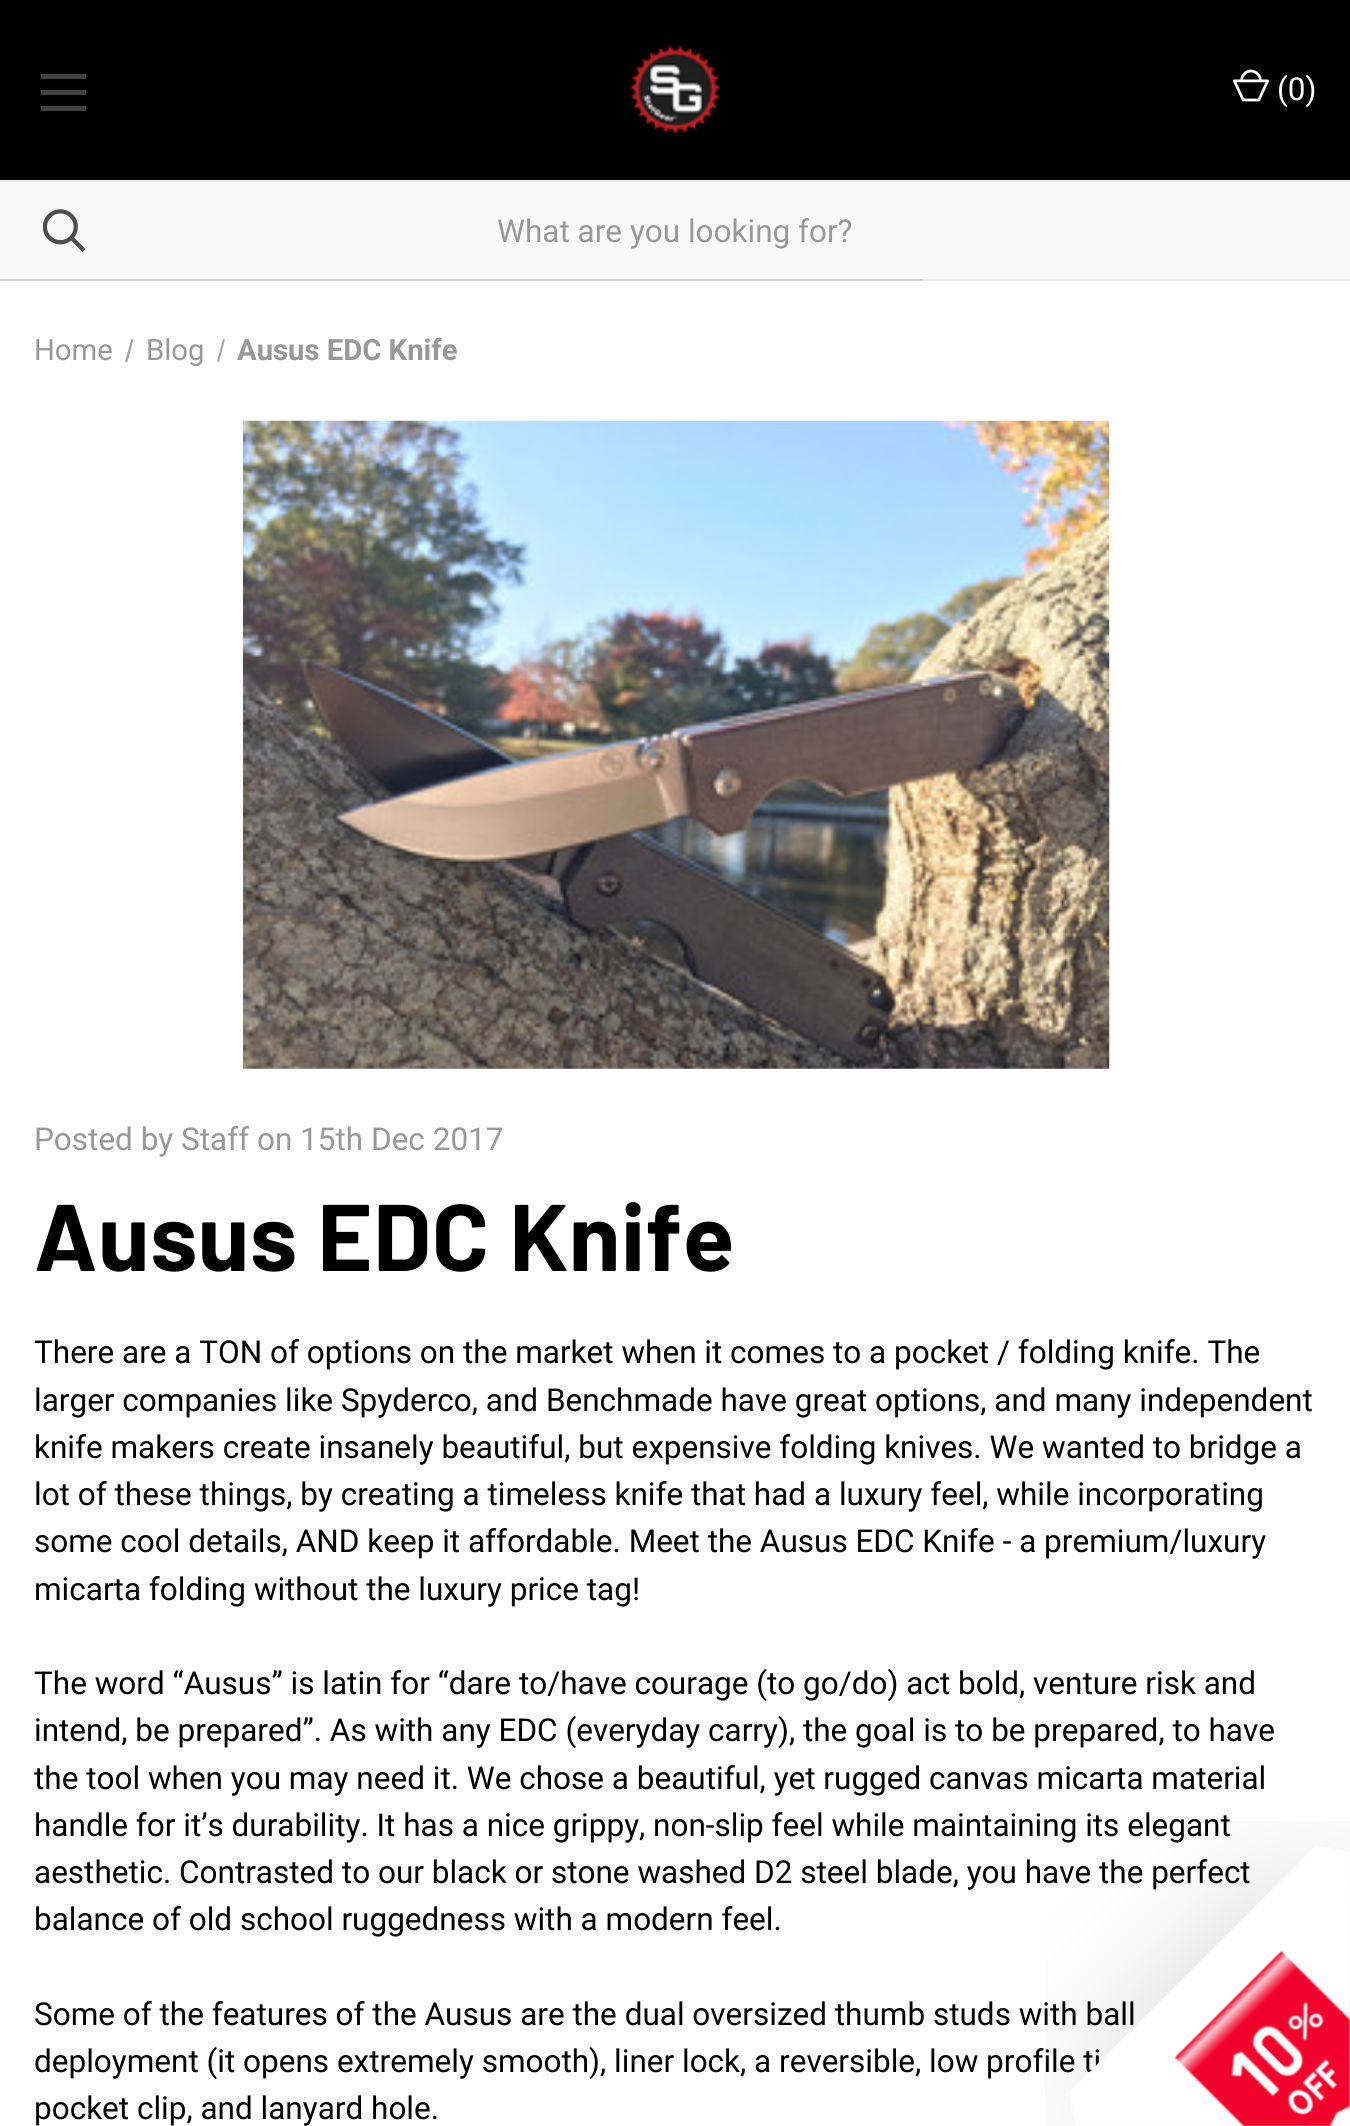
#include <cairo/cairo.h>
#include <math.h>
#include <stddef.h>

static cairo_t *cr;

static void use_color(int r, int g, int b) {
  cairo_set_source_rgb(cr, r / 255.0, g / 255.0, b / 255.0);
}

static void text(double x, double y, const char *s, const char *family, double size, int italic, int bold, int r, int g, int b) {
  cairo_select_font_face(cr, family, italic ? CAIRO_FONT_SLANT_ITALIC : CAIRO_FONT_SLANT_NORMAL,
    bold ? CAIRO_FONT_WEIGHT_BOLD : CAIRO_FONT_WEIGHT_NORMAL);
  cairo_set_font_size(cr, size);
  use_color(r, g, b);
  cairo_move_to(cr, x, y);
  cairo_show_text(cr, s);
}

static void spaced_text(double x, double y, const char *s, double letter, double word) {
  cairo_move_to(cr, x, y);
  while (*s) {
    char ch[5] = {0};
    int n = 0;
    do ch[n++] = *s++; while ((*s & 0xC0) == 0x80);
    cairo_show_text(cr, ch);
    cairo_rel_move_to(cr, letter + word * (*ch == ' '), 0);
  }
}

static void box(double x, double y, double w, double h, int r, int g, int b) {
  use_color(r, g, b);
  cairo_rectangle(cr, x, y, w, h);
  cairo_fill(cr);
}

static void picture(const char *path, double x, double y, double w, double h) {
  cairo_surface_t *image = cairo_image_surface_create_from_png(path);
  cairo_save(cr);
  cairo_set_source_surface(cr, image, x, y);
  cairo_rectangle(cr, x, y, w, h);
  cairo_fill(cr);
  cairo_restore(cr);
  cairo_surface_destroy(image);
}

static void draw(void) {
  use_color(255, 255, 255);
  cairo_paint(cr);
  box(0, 0, 1350, 180, 0, 0, 0);
  box(923, 279, 427, 2, 235, 235, 235);
  box(41, 90, 45, 5, 66, 66, 66);
  box(41, 74, 45, 5, 66, 66, 66);
  box(41, 106, 45, 5, 66, 66, 66);
  picture("img_01.png", 630, 45, 90, 90);
  picture("img_02.png", 1233, 69, 36, 33);
  box(0, 182, 1350, 97, 249, 249, 249);
  picture("img_03.png", 43, 209, 43, 43);
  box(0, 180, 1350, 2, 235, 235, 235);
  box(0, 279, 923, 2, 210, 210, 210);
  use_color(163, 163, 163);
  cairo_new_path(cr);
  cairo_move_to(cr, 131.5, 339);
  cairo_line_to(cr, 133.5, 339.5);
  cairo_line_to(cr, 127.5, 362);
  cairo_line_to(cr, 125, 361.5);
  cairo_close_path(cr);
  cairo_fill(cr);
  cairo_new_path(cr);
  cairo_move_to(cr, 223, 339);
  cairo_line_to(cr, 225, 339.5);
  cairo_line_to(cr, 219, 362);
  cairo_line_to(cr, 217, 361.5);
  cairo_close_path(cr);
  cairo_fill(cr);
  picture("img_04.png", 243, 420, 867, 649);
  text(1277, 100, "(0)", "Roboto", 31.5, 0, 0, 255, 255, 255);
  text(497, 242, "What are you looking for?", "Roboto", 31.5, 0, 0, 152, 152, 152);
  text(34, 360, "Home", "Roboto", 29.25, 0, 0, 152, 152, 152);
  text(146, 360, "Blog", "Roboto", 29.25, 0, 0, 152, 152, 152);
  text(237, 360, "Ausus EDC Knife", "Roboto", 29.25, 0, 1, 152, 152, 152);
  text(34, 1150, "Posted by Staff on 15th Dec 2017", "Roboto", 31.5, 0, 0, 152, 152, 152);
  cairo_select_font_face(cr, "Barlow", CAIRO_FONT_SLANT_NORMAL, CAIRO_FONT_WEIGHT_BOLD);
  cairo_set_font_size(cr, 94.5);
  use_color(0, 0, 0);
  spaced_text(34, 1271, "Ausus EDC Knife", 0.5, 0);
  text(34, 1363, "There are a TON of options on the market when it comes to a pocket / folding knife. The", "Roboto", 31.5, 0, 0, 0, 0, 0);
  text(34, 1411, "larger companies like Spyderco, and Benchmade have great options, and many independent", "Roboto", 31.5, 0, 0, 0, 0, 0);
  text(34, 1458, "knife makers create insanely beautiful, but expensive folding knives. We wanted to bridge a", "Roboto", 31.5, 0, 0, 0, 0, 0);
  text(34, 1505, "lot of these things, by creating a timeless knife that had a luxury feel, while incorporating", "Roboto", 31.5, 0, 0, 0, 0, 0);
  text(34, 1552, "some cool details, AND keep it affordable. Meet the Ausus EDC Knife - a premium/luxury", "Roboto", 31.5, 0, 0, 0, 0, 0);
  text(34, 1600, "micarta folding without the luxury price tag!", "Roboto", 31.5, 0, 0, 0, 0, 0);
  text(34, 1694, "The word “Ausus” is latin for “dare to/have courage (to go/do) act bold, venture risk and", "Roboto", 31.5, 0, 0, 0, 0, 0);
  text(34, 1741, "intend, be prepared”. As with any EDC (everyday carry), the goal is to be prepared, to have", "Roboto", 31.5, 0, 0, 0, 0, 0);
  text(34, 1789, "the tool when you may need it. We chose a beautiful, yet rugged canvas micarta material", "Roboto", 31.5, 0, 0, 0, 0, 0);
  text(34, 1836, "handle for it’s durability. It has a nice grippy, non-slip feel while maintaining its elegant", "Roboto", 31.5, 0, 0, 0, 0, 0);
  text(34, 1883, "aesthetic. Contrasted to our black or stone washed D2 steel blade, you have the perfect", "Roboto", 31.5, 0, 0, 0, 0, 0);
  text(34, 1930, "balance of old school ruggedness with a modern feel.", "Roboto", 31.5, 0, 0, 0, 0, 0);
  text(34, 2025, "Some of the features of the Ausus are the dual oversized thumb studs with ball", "Roboto", 31.5, 0, 0, 0, 0, 0);
  text(34, 2072, "deployment (it opens extremely smooth), liner lock, a reversible, low profile ti", "Roboto", 31.5, 0, 0, 0, 0, 0);
  text(34, 2119, "pocket clip, and lanyard hole.", "Roboto", 31.5, 0, 0, 0, 0, 0);
  picture("img_05.png", 1045, 1821, 305, 305);
}

int main(void) {
  cairo_surface_t *surface = cairo_image_surface_create(CAIRO_FORMAT_RGB24, 1350, 2126);
  cr = cairo_create(surface);
  cairo_font_options_t *options = cairo_font_options_create();
  cairo_font_options_set_hint_metrics(options, CAIRO_HINT_METRICS_OFF);
  cairo_font_options_set_hint_style(options, CAIRO_HINT_STYLE_NONE);
  cairo_set_font_options(cr, options);
  cairo_set_miter_limit(cr, 4);
  draw();
  cairo_surface_write_to_png(surface, "out.png");
  cairo_font_options_destroy(options);
  cairo_destroy(cr);
  cairo_surface_destroy(surface);
  return 0;
}
